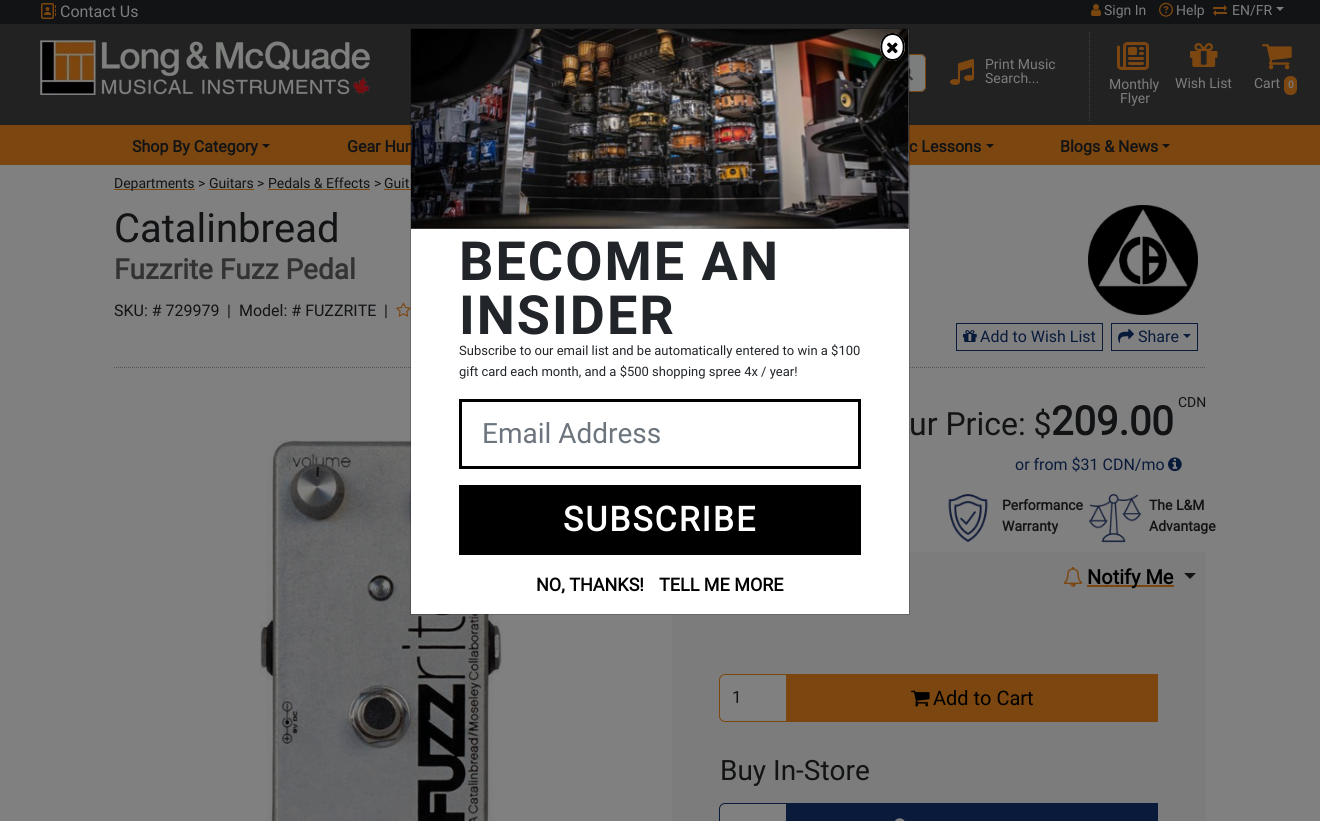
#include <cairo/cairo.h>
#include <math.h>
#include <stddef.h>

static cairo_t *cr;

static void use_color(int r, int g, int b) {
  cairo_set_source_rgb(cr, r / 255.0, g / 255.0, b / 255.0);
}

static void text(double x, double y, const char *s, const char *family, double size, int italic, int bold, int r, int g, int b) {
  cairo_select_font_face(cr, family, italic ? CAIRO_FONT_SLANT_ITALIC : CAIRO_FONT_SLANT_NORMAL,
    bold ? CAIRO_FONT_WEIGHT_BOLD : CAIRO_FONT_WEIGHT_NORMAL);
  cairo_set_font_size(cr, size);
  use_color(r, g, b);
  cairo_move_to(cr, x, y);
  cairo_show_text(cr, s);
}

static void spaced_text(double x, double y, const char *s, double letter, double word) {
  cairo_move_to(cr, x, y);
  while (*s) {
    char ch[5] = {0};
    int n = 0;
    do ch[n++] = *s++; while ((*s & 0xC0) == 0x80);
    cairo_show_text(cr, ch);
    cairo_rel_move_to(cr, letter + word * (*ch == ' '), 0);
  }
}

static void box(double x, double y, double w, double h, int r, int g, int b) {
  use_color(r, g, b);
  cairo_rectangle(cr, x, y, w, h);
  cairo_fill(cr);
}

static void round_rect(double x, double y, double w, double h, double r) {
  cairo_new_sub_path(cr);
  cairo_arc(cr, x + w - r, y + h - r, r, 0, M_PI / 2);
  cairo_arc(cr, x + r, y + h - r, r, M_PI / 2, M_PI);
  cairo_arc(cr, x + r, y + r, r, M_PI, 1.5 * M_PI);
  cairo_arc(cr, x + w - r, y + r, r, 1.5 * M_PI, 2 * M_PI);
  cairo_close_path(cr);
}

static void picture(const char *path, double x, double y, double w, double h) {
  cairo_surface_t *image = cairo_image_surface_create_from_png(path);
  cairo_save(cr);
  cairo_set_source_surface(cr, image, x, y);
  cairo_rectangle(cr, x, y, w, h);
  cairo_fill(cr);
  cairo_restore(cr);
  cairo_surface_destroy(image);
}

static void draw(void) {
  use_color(128, 128, 128);
  cairo_paint(cr);
  box(0, 125, 1320, 40, 123, 70, 15);
  box(0, 0, 1320, 24, 17, 19, 21);
  picture("img_01.png", 41, 3, 15, 16);
  picture("img_02.png", 1091, 4, 10, 12);
  picture("img_03.png", 1159, 2, 14, 15);
  picture("img_04.png", 1213, 5, 14, 11);
  use_color(124, 125, 125);
  cairo_new_path(cr);
  cairo_move_to(cr, 1276, 7);
  cairo_line_to(cr, 1284, 7);
  cairo_line_to(cr, 1280, 11);
  cairo_close_path(cr);
  cairo_fill(cr);
  box(0, 24, 1320, 101, 34, 34, 34);
  picture("img_05.png", 40, 40, 330, 55);
  use_color(124, 125, 125);
  cairo_new_path(cr);
  cairo_move_to(cr, 886, 54);
  cairo_line_to(cr, 920, 54);
  cairo_curve_to(cr, 923.5, 54, 926, 56.5, 926, 60);
  cairo_line_to(cr, 926, 86);
  cairo_curve_to(cr, 926, 89.5, 923.5, 92, 920, 92);
  cairo_line_to(cr, 886, 92);
  cairo_close_path(cr);
  cairo_fill(cr);
  use_color(123, 70, 15);
  cairo_set_fill_rule(cr, CAIRO_FILL_RULE_EVEN_ODD);
  cairo_new_path(cr);
  cairo_move_to(cr, 886, 54);
  cairo_line_to(cr, 920, 54);
  cairo_curve_to(cr, 923, 54, 926, 57, 926, 60);
  cairo_line_to(cr, 926, 86);
  cairo_curve_to(cr, 926, 89, 923, 92, 920, 92);
  cairo_line_to(cr, 886, 92);
  cairo_close_path(cr);
  cairo_move_to(cr, 886, 55);
  cairo_line_to(cr, 920, 55);
  cairo_curve_to(cr, 923, 55, 925, 57, 925, 60);
  cairo_line_to(cr, 925, 86);
  cairo_curve_to(cr, 925, 89, 923, 91, 920, 91);
  cairo_line_to(cr, 886, 91);
  cairo_close_path(cr);
  cairo_fill(cr);
  picture("img_06.png", 909, 67, 4, 14);
  picture("img_07.png", 950, 59, 24, 26);
  cairo_new_path(cr);
  cairo_move_to(cr, 1089.5, 32);
  cairo_line_to(cr, 1089.5, 121);
  use_color(68, 68, 68);
  cairo_set_line_width(cr, 1);
  cairo_set_dash(cr, (double[]){1, 1}, 2, 0);
  cairo_stroke(cr);
  picture("img_08.png", 1117, 42, 32, 28);
  picture("img_09.png", 1190, 43, 28, 24);
  picture("img_10.png", 1262, 44, 30, 26);
  use_color(123, 70, 15);
  round_rect(1284, 76, 13, 19, 6);
  cairo_fill(cr);
  use_color(17, 17, 17);
  cairo_set_fill_rule(cr, CAIRO_FILL_RULE_WINDING);
  cairo_new_path(cr);
  cairo_move_to(cr, 262, 144);
  cairo_line_to(cr, 270, 144);
  cairo_line_to(cr, 266, 148);
  cairo_close_path(cr);
  cairo_fill(cr);
  cairo_new_path(cr);
  cairo_move_to(cr, 986, 144);
  cairo_line_to(cr, 994, 144);
  cairo_line_to(cr, 990, 148);
  cairo_close_path(cr);
  cairo_fill(cr);
  cairo_new_path(cr);
  cairo_move_to(cr, 1162, 144);
  cairo_line_to(cr, 1170, 144);
  cairo_line_to(cr, 1166, 148);
  cairo_close_path(cr);
  cairo_fill(cr);
  box(114, 189, 81, 1, 123, 70, 15);
  box(209, 189, 45, 1, 123, 70, 15);
  box(268, 189, 102, 1, 123, 70, 15);
  box(384, 189, 27, 1, 123, 70, 15);
  picture("img_11.png", 396, 302, 15, 15);
  picture("img_12.png", 1088, 205, 110, 110);
  cairo_rectangle(cr, 956.5, 323.5, 146, 27);
  use_color(9, 26, 59);
  cairo_set_dash(cr, NULL, 0, 0);
  cairo_stroke(cr);
  picture("img_13.png", 963, 330, 14, 12);
  cairo_rectangle(cr, 1111.5, 323.5, 86, 27);
  cairo_stroke(cr);
  picture("img_14.png", 1118, 328, 16, 16);
  cairo_new_path(cr);
  cairo_move_to(cr, 1183, 334);
  cairo_line_to(cr, 1191, 334);
  cairo_line_to(cr, 1187, 338);
  cairo_close_path(cr);
  cairo_fill(cr);
  cairo_new_path(cr);
  cairo_move_to(cr, 114, 367.5);
  cairo_line_to(cr, 1206, 367.5);
  use_color(85, 85, 85);
  cairo_set_dash(cr, (double[]){1, 1}, 2, 0);
  cairo_stroke(cr);
  picture("img_15.png", 260, 440, 242, 381);
  picture("img_16.png", 1168, 457, 14, 15);
  picture("img_17.png", 948, 493, 40, 49);
  picture("img_18.png", 1088, 493, 54, 50);
  box(672, 552, 534, 269, 124, 124, 124);
  picture("img_19.png", 1063, 566, 20, 21);
  box(1087, 585, 87, 2, 123, 70, 15);
  use_color(17, 19, 21);
  cairo_new_path(cr);
  cairo_move_to(cr, 1184, 573);
  cairo_line_to(cr, 1196, 573);
  cairo_line_to(cr, 1190, 579);
  cairo_close_path(cr);
  cairo_fill(cr);
  use_color(128, 128, 128);
  cairo_new_path(cr);
  cairo_move_to(cr, 725, 674.5);
  cairo_line_to(cr, 786.5, 674.5);
  cairo_line_to(cr, 786.5, 721.5);
  cairo_line_to(cr, 725, 721.5);
  cairo_curve_to(cr, 722, 721.5, 719.5, 719, 719.5, 716);
  cairo_line_to(cr, 719.5, 680);
  cairo_curve_to(cr, 719.5, 677, 722, 674.5, 725, 674.5);
  cairo_close_path(cr);
  cairo_fill_preserve(cr);
  use_color(123, 70, 15);
  cairo_set_dash(cr, NULL, 0, 0);
  cairo_stroke(cr);
  box(787, 674, 371, 48, 123, 70, 15);
  picture("img_20.png", 911, 690, 19, 17);
  use_color(128, 128, 128);
  cairo_new_path(cr);
  cairo_move_to(cr, 725, 804);
  cairo_line_to(cr, 786, 804);
  cairo_line_to(cr, 786, 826);
  cairo_line_to(cr, 725, 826);
  cairo_curve_to(cr, 722, 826, 720, 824, 720, 821);
  cairo_line_to(cr, 720, 809);
  cairo_curve_to(cr, 720, 806, 722, 804, 725, 804);
  cairo_close_path(cr);
  cairo_fill(cr);
  cairo_new_path(cr);
  cairo_move_to(cr, 725, 803.5);
  cairo_line_to(cr, 786.5, 803.5);
  cairo_line_to(cr, 786.5, 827.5);
  cairo_line_to(cr, 725, 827.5);
  cairo_curve_to(cr, 722, 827.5, 719.5, 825, 719.5, 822);
  cairo_line_to(cr, 719.5, 809);
  cairo_curve_to(cr, 719.5, 806, 722, 803.5, 725, 803.5);
  cairo_close_path(cr);
  use_color(9, 26, 59);
  cairo_stroke(cr);
  box(787, 803, 371, 18, 9, 26, 59);
  picture("img_21.png", 895, 818, 10, 3);
  text(60, 17, "Contact Us", "Roboto", 16, 0, 0, 124, 125, 125);
  text(1104, 15, "Sign In", "Roboto", 14, 0, 0, 124, 125, 125);
  text(1176, 15, "Help", "Roboto", 14, 0, 0, 124, 125, 125);
  text(1232, 15, "EN/FR", "Roboto", 14, 0, 0, 124, 125, 125);
  text(985, 69, "Print Music", "Roboto", 14, 0, 0, 124, 125, 125);
  text(985, 83, "Search...", "Roboto", 14, 0, 0, 124, 125, 125);
  text(1109, 89, "Monthly", "Roboto", 14, 0, 0, 124, 125, 125);
  text(1120, 103, "Flyer", "Roboto", 14, 0, 0, 124, 125, 125);
  text(1175, 88, "Wish List", "Roboto", 14, 0, 0, 124, 125, 125);
  text(1254, 88, "Cart", "Roboto", 14, 0, 0, 124, 125, 125);
  text(1288, 88, "0", "Roboto", 10, 0, 1, 124, 125, 125);
  text(132, 152, "Shop By Category", "Roboto", 16, 0, 1, 17, 19, 21);
  text(347, 152, "Gear Hun", "Roboto", 16, 0, 1, 17, 19, 21);
  text(909, 152, "c Lessons", "Roboto", 16, 0, 1, 17, 19, 21);
  text(1060, 152, "Blogs & News", "Roboto", 16, 0, 1, 17, 19, 21);
  text(114, 188, "Departments", "Roboto", 14, 0, 0, 17, 19, 21);
  text(198, 188, ">", "Roboto", 14, 0, 0, 17, 19, 21);
  text(209, 188, "Guitars", "Roboto", 14, 0, 0, 17, 19, 21);
  text(257, 188, ">", "Roboto", 14, 0, 0, 17, 19, 21);
  text(268, 188, "Pedals & Effects", "Roboto", 14, 0, 0, 17, 19, 21);
  text(374, 188, ">", "Roboto", 14, 0, 0, 17, 19, 21);
  text(384, 188, "Guit", "Roboto", 14, 0, 0, 17, 19, 21);
  text(114, 242, "Catalinbread", "Roboto", 40, 0, 0, 17, 19, 21);
  text(114, 279, "Fuzzrite Fuzz Pedal", "Roboto", 28, 0, 1, 51, 51, 51);
  text(114, 316, "SKU: # 729979", "Roboto", 16, 0, 0, 17, 19, 21);
  text(227, 316, "|", "Roboto", 16, 0, 0, 17, 19, 21);
  text(239, 316, "Model: # FUZZRITE", "Roboto", 16, 0, 0, 17, 19, 21);
  text(384, 316, "|", "Roboto", 16, 0, 0, 17, 19, 21);
  text(980, 342, "Add to Wish List", "Roboto", 16, 0, 0, 9, 26, 59);
  text(1138, 342, "Share", "Roboto", 16, 0, 0, 9, 26, 59);
  text(1178, 407, "CDN", "Roboto", 14, 0, 0, 17, 19, 21);
  text(909, 435, "ur Price: $", "Roboto", 32, 0, 0, 17, 19, 21);
  text(1051, 435, "209.00", "Roboto", 40, 0, 1, 17, 19, 21);
  text(1015, 470, "or from $31 CDN/mo", "Roboto", 16, 0, 0, 9, 26, 59);
  text(1002, 510, "Performance", "Roboto", 14, 0, 1, 17, 19, 21);
  text(1002, 531, "Warranty", "Roboto", 14, 0, 1, 17, 19, 21);
  text(1149, 510, "The L&M", "Roboto", 14, 0, 1, 17, 19, 21);
  text(1149, 531, "Advantage", "Roboto", 14, 0, 1, 17, 19, 21);
  text(1087, 584, "Notify Me", "Roboto", 20, 0, 1, 0, 0, 0);
  text(732, 703, "1", "Roboto", 17, 0, 0, 17, 19, 21);
  text(933, 705, "Add to Cart", "Roboto", 20, 0, 0, 0, 0, 0);
  text(720, 780, "Buy In-Store", "Roboto", 28, 0, 0, 17, 19, 21);
  box(411, 29, 498, 585, 255, 255, 255);
  cairo_rectangle(cr, 410.5, 28.5, 499, 586);
  cairo_set_source_rgba(cr, 0, 0, 0, 0.18);
  cairo_stroke(cr);
  picture("img_22.png", 411, 29, 498, 200);
  use_color(255, 255, 255);
  cairo_new_path(cr);
  cairo_move_to(cr, 892.5, 33);
  cairo_curve_to(cr, 899.5, 33, 905, 39.5, 905, 47);
  cairo_curve_to(cr, 905, 54.5, 899.5, 61, 892.5, 61);
  cairo_curve_to(cr, 885.5, 61, 880, 54.5, 880, 47);
  cairo_curve_to(cr, 880, 39.5, 885.5, 33, 892.5, 33);
  cairo_close_path(cr);
  cairo_fill(cr);
  cairo_new_path(cr);
  cairo_move_to(cr, 892.5, 34);
  cairo_curve_to(cr, 907.5, 34, 907.5, 60, 892.5, 60);
  cairo_curve_to(cr, 877.5, 60, 877.5, 34, 892.5, 34);
  cairo_close_path(cr);
  use_color(0, 0, 0);
  cairo_set_line_width(cr, 2);
  cairo_stroke(cr);
  picture("img_23.png", 887, 42, 11, 12);
  cairo_select_font_face(cr, "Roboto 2", CAIRO_FONT_SLANT_NORMAL, CAIRO_FONT_WEIGHT_BOLD);
  cairo_set_font_size(cr, 54);
  use_color(33, 37, 41);
  spaced_text(459, 280, "BECOME AN", 2, 0);
  spaced_text(459, 334, "INSIDER", 2, 0);
  text(459, 355, "Subscribe to our email list and be automatically entered to win a $100", "Roboto", 13, 0, 0, 33, 37, 41);
  text(459, 376, "gift card each month, and a $500 shopping spree 4x / year!", "Roboto", 13, 0, 0, 33, 37, 41);
  cairo_rectangle(cr, 460.5, 400.5, 399, 67);
  use_color(0, 0, 0);
  cairo_set_line_width(cr, 3);
  cairo_stroke(cr);
  text(482, 443, "Email Address", "Roboto", 28, 0, 0, 108, 117, 125);
  box(459, 485, 402, 70, 0, 0, 0);
  cairo_select_font_face(cr, "Roboto", CAIRO_FONT_SLANT_NORMAL, CAIRO_FONT_WEIGHT_BOLD);
  cairo_set_font_size(cr, 34);
  use_color(255, 255, 255);
  spaced_text(563, 531, "SUBSCRIBE", 2, 0);
  text(536, 591, "NO, THANKS!", "Roboto", 18, 0, 1, 0, 0, 0);
  text(659, 591, "TELL ME MORE", "Roboto", 18, 0, 1, 0, 0, 0);
}

int main(void) {
  cairo_surface_t *surface = cairo_image_surface_create(CAIRO_FORMAT_RGB24, 1320, 821);
  cr = cairo_create(surface);
  cairo_font_options_t *options = cairo_font_options_create();
  cairo_font_options_set_hint_metrics(options, CAIRO_HINT_METRICS_OFF);
  cairo_font_options_set_hint_style(options, CAIRO_HINT_STYLE_NONE);
  cairo_set_font_options(cr, options);
  cairo_set_miter_limit(cr, 4);
  draw();
  cairo_surface_write_to_png(surface, "out.png");
  cairo_font_options_destroy(options);
  cairo_destroy(cr);
  cairo_surface_destroy(surface);
  return 0;
}
